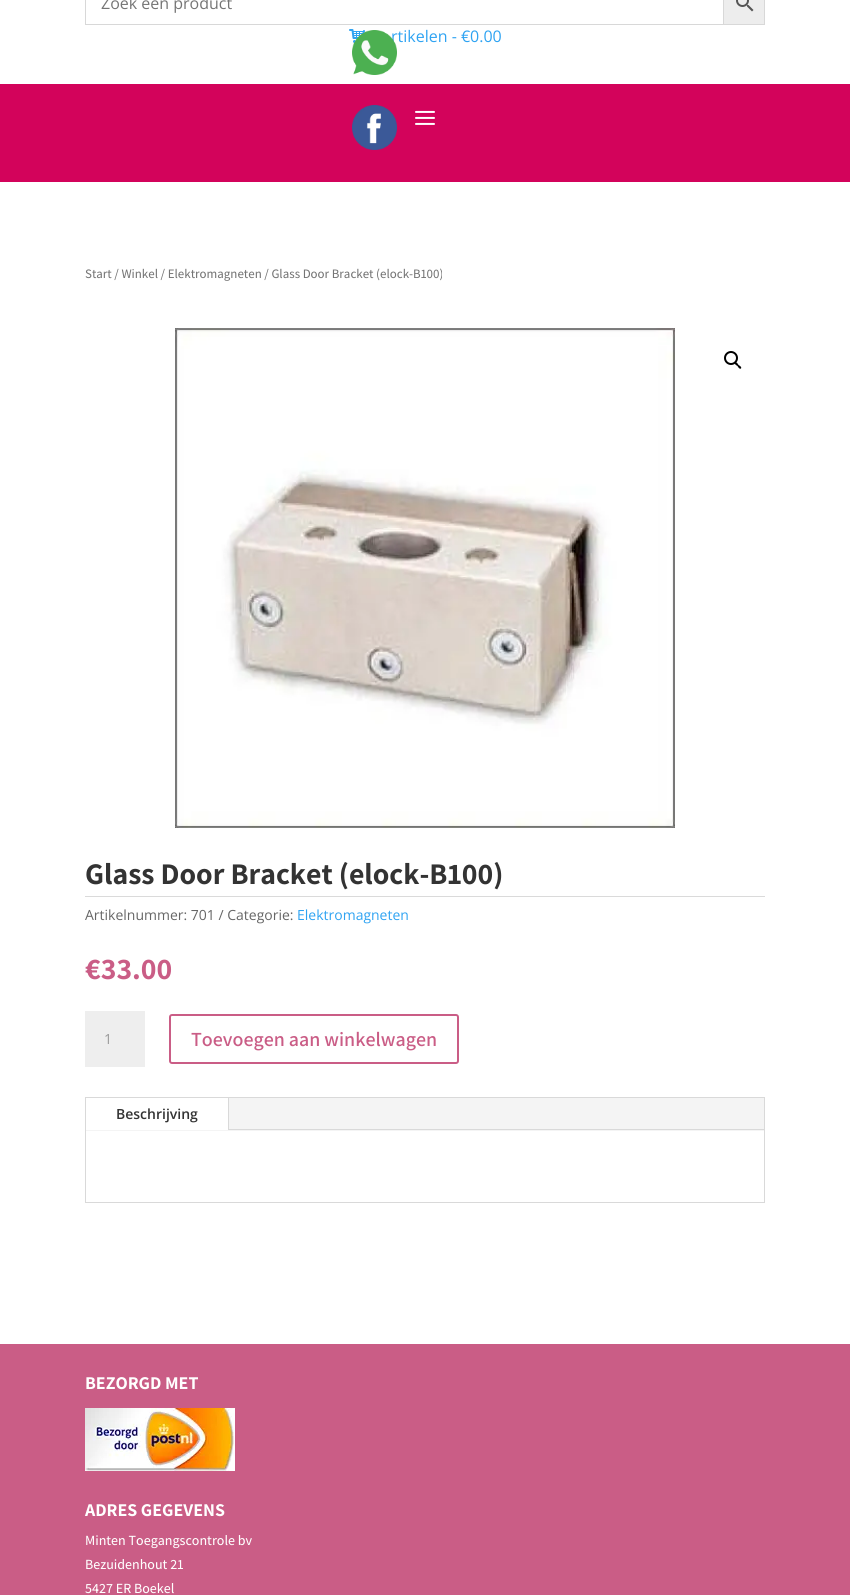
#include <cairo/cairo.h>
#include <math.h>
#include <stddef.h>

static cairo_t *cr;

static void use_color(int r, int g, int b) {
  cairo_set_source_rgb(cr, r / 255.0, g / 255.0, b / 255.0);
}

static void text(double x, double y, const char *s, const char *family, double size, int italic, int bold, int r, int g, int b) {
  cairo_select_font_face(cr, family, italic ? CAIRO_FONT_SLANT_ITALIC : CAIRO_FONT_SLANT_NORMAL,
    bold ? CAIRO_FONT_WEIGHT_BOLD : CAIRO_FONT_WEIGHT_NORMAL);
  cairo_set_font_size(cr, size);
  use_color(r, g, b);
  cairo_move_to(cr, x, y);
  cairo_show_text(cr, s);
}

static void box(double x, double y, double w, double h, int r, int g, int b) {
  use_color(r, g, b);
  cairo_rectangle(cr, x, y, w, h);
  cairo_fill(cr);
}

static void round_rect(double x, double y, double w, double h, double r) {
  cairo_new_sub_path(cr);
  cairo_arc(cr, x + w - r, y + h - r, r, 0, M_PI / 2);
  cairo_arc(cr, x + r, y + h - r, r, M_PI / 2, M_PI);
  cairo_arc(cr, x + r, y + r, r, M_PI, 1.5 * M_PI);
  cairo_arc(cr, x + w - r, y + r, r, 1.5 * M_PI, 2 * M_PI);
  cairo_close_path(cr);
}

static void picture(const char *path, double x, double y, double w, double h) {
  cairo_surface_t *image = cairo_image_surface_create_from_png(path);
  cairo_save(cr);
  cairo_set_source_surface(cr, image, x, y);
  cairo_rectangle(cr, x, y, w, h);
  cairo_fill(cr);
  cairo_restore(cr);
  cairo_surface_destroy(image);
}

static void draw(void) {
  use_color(255, 255, 255);
  cairo_paint(cr);
  use_color(237, 237, 237);
  cairo_rectangle(cr, 723.5, -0.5, 41, 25);
  cairo_fill_preserve(cr);
  use_color(216, 216, 216);
  cairo_set_line_width(cr, 1);
  cairo_stroke(cr);
  cairo_rectangle(cr, 85.5, -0.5, 638, 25);
  cairo_stroke(cr);
  picture("img_01.png", 736, 0, 18, 12);
  picture("img_02.png", 349, 29, 16, 14);
  box(0, 84, 850, 98, 211, 3, 91);
  picture("img_04.png", 352, 105, 45, 45);
  picture("img_05.png", 415, 110, 20, 15);
  picture("img_06.png", 175, 328, 500, 500);
  cairo_arc(cr, 731, 358, 6, 0, 2 * M_PI);
  use_color(0, 0, 0);
  cairo_set_line_width(cr, 2);
  cairo_stroke(cr);
  cairo_new_path(cr);
  cairo_move_to(cr, 735, 362.5);
  cairo_curve_to(cr, 736.5, 361.5, 738, 364, 738.5, 365);
  cairo_curve_to(cr, 739.5, 365.5, 742, 367, 741, 368.5);
  cairo_curve_to(cr, 739.5, 369.5, 738, 367, 737.5, 366);
  cairo_curve_to(cr, 736.5, 365.5, 734, 364, 735, 362.5);
  cairo_close_path(cr);
  cairo_fill(cr);
  box(85, 896, 680, 1, 218, 218, 218);
  box(85, 1011, 60, 56, 238, 238, 238);
  round_rect(170, 1015, 288, 48, 2);
  use_color(202, 93, 134);
  cairo_stroke(cr);
  cairo_rectangle(cr, 85.5, 1097.5, 679, 105);
  use_color(217, 217, 217);
  cairo_set_line_width(cr, 1);
  cairo_stroke(cr);
  box(86, 1098, 678, 33, 244, 244, 244);
  box(86, 1098, 142, 32, 255, 255, 255);
  box(228, 1098, 1, 32, 217, 217, 217);
  box(229, 1129, 535, 1, 217, 217, 217);
  box(0, 1344, 850, 251, 202, 93, 134);
  picture("img_07.png", 85, 1408, 150, 63);
  text(101, 9, "Zoek een product", "Open Sans", 16, 0, 0, 117, 117, 117);
  text(391, 42, "rtikelen - €0.00", "Open Sans", 16, 0, 0, 46, 163, 242);
  picture("img_03.png", 352, 30, 45, 45);
  text(85, 278, "Start / Winkel / Elektromagneten / Glass Door Bracket (elock-B100)", "Assistant ExtraLight", 12.9, 0, 0, 117, 117, 117);
  text(85, 884, "Glass Door Bracket (elock-B100)", "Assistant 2 ExtraLight", 30, 0, 0, 51, 51, 51);
  text(85, 920, "Artikelnummer: 701 / Categorie:", "Open Sans", 14, 0, 0, 102, 102, 102);
  text(297, 920, "Elektromagneten", "Open Sans", 14, 0, 0, 46, 163, 242);
  text(85, 979, "€33.00", "Assistant 2 ExtraLight", 30, 0, 0, 202, 93, 134);
  text(104, 1044, "1", "Open Sans", 14, 0, 0, 153, 153, 153);
  text(191, 1046, "Toevoegen aan winkelwagen", "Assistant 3 ExtraLight", 20, 0, 0, 202, 93, 134);
  text(116, 1119, "Beschrijving", "Open Sans SemiBold", 14, 0, 0, 51, 51, 51);
  text(85, 1389, "BEZORGD MET", "Assistant 2 ExtraLight", 18, 0, 0, 255, 255, 255);
  text(85, 1516, "ADRES GEGEVENS", "Assistant 2 ExtraLight", 18, 0, 0, 255, 255, 255);
  text(85, 1545, "Minten Toegangscontrole bv", "Assistant ExtraLight", 14, 0, 0, 255, 255, 255);
  text(85, 1569, "Bezuidenhout 21", "Assistant ExtraLight", 14, 0, 0, 255, 255, 255);
  text(85, 1593, "5427 ER Boekel", "Assistant ExtraLight", 14, 0, 0, 255, 255, 255);
}

int main(void) {
  cairo_surface_t *surface = cairo_image_surface_create(CAIRO_FORMAT_RGB24, 850, 1595);
  cr = cairo_create(surface);
  cairo_font_options_t *options = cairo_font_options_create();
  cairo_font_options_set_hint_metrics(options, CAIRO_HINT_METRICS_OFF);
  cairo_font_options_set_hint_style(options, CAIRO_HINT_STYLE_NONE);
  cairo_set_font_options(cr, options);
  cairo_set_miter_limit(cr, 4);
  draw();
  cairo_surface_write_to_png(surface, "out.png");
  cairo_font_options_destroy(options);
  cairo_destroy(cr);
  cairo_surface_destroy(surface);
  return 0;
}
